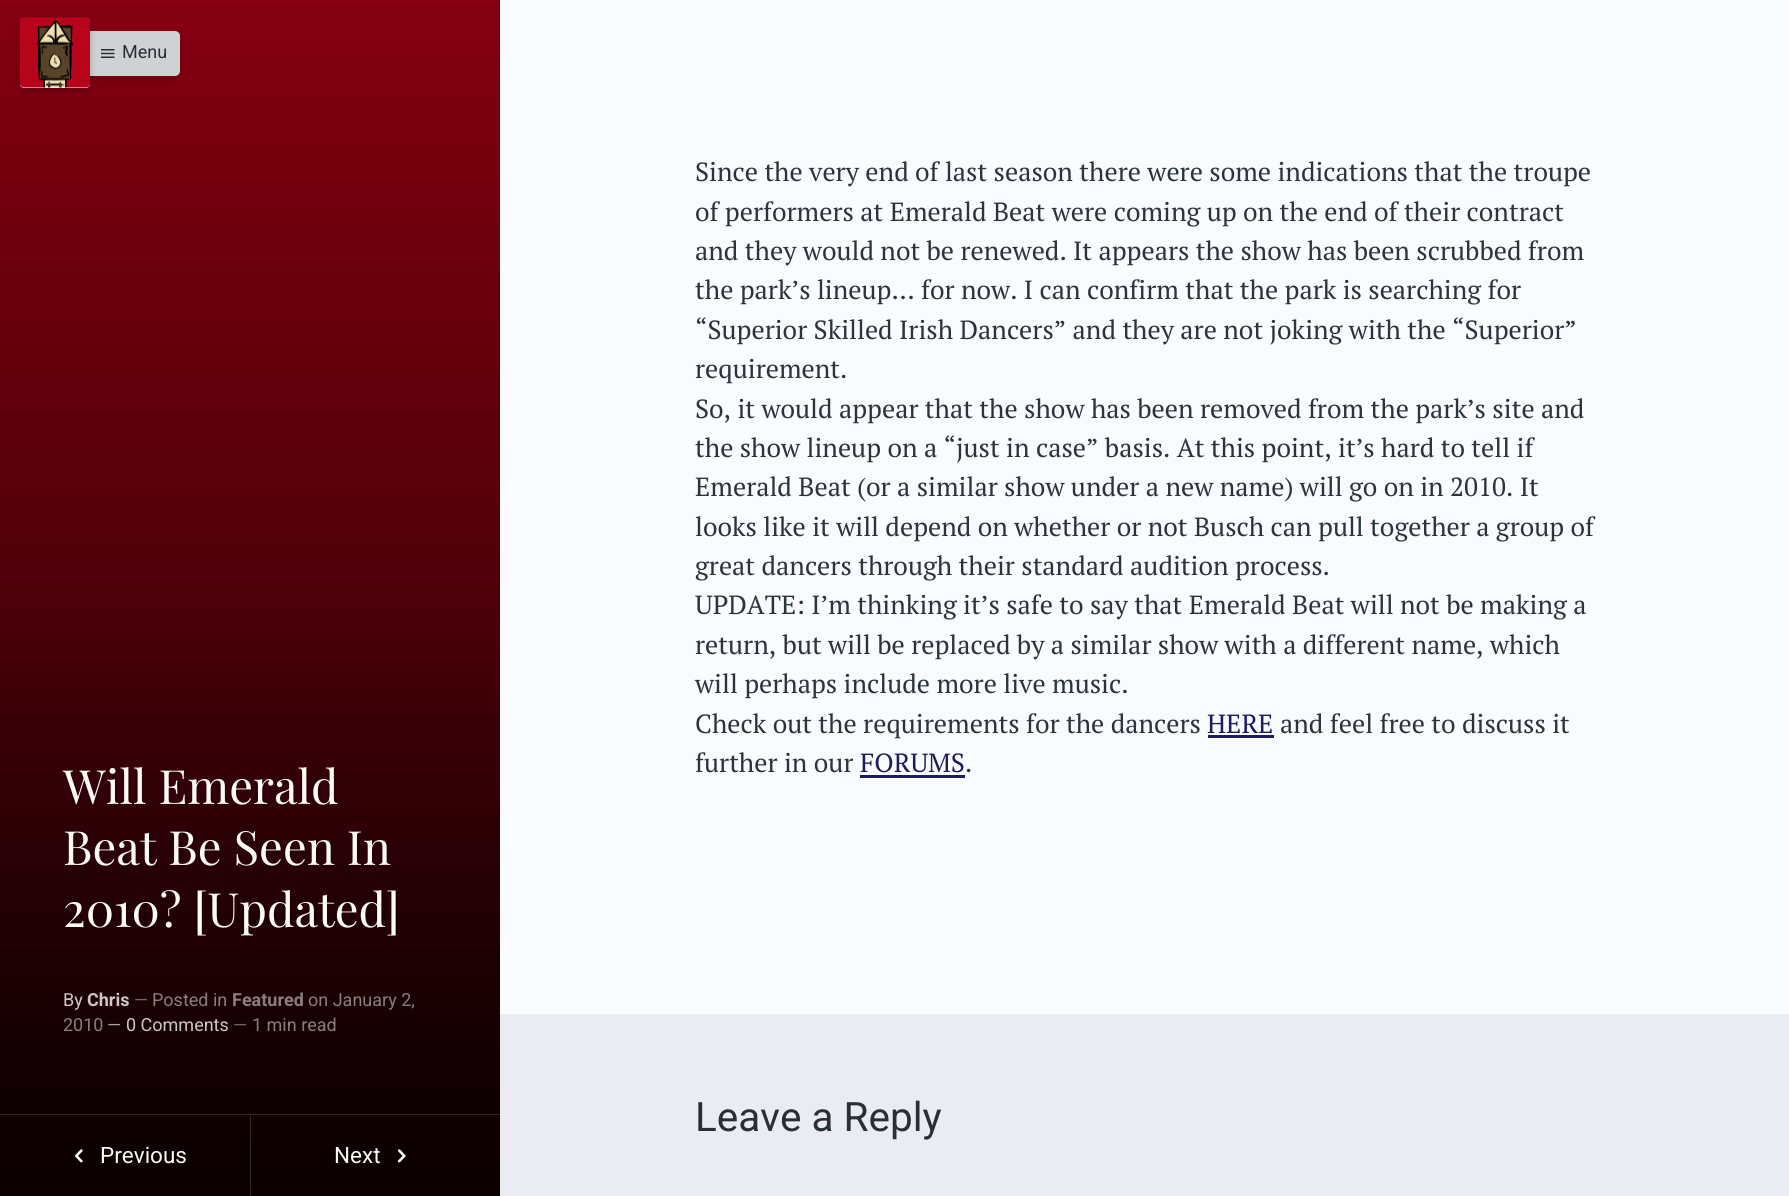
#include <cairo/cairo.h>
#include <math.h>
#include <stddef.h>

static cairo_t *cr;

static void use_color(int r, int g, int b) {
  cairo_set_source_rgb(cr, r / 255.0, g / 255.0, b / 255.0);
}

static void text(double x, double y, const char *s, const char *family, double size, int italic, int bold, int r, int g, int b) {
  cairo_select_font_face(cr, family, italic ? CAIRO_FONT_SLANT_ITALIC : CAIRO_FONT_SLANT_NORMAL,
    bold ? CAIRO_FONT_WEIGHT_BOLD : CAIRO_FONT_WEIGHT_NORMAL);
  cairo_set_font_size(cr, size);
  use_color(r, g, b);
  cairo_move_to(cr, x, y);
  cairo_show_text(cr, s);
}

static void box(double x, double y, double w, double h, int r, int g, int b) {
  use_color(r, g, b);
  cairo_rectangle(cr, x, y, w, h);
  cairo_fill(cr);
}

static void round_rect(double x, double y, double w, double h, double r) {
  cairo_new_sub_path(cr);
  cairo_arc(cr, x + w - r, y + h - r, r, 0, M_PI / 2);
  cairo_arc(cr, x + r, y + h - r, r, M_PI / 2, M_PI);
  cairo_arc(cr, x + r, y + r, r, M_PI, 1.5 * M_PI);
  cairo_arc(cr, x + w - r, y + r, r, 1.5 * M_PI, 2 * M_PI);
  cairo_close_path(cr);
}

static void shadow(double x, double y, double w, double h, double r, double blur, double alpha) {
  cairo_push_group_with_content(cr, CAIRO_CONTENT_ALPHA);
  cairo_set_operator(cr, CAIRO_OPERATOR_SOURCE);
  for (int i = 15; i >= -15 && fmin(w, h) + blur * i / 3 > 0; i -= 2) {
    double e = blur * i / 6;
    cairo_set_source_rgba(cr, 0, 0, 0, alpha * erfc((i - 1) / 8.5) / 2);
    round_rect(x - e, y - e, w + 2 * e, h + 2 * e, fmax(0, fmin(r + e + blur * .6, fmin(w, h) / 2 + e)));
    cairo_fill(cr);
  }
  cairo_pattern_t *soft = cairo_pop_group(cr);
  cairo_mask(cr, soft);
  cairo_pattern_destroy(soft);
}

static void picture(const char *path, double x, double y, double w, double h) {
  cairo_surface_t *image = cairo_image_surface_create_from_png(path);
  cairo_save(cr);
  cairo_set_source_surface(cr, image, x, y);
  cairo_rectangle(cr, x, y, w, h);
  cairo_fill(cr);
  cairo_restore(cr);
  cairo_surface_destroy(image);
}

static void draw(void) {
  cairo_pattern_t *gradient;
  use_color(249, 251, 255);
  cairo_paint(cr);
  gradient = cairo_pattern_create_linear(250, 0, 250, 1196);
  cairo_pattern_add_color_stop_rgba(gradient, 0.5, 0.651, 0, 0.078, 1);
  cairo_pattern_add_color_stop_rgba(gradient, 0.9, 0.361, 0, 0.043, 1);
  cairo_set_source(cr, gradient);
  cairo_pattern_destroy(gradient);
  cairo_rectangle(cr, 0, 0, 500, 1196);
  cairo_fill(cr);
  gradient = cairo_pattern_create_linear(250, 0, 250, 1196);
  cairo_pattern_add_color_stop_rgba(gradient, 0, 0, 0, 0, 0.2);
  cairo_pattern_add_color_stop_rgba(gradient, 1, 0, 0, 0, 0.87);
  cairo_set_source(cr, gradient);
  cairo_pattern_destroy(gradient);
  cairo_rectangle(cr, 0, 0, 500, 1196);
  cairo_fill(cr);
  use_color(0, 0, 0);
  shadow(74, 34, 106, 45, 5, 2.5, 0.1);
  use_color(207, 209, 213);
  round_rect(74, 31, 106, 45, 5);
  cairo_fill(cr);
  use_color(0, 0, 0);
  shadow(20, 20, 70, 70, 4, 3, 0.26);
  use_color(249, 251, 255);
  round_rect(20, 18, 70, 70, 4);
  cairo_fill(cr);
  picture("img_01.png", 20, 17, 70, 71);
  picture("img_02.png", 101, 49, 14, 9);
  box(0, 1114, 500, 1, 52, 38, 40);
  picture("img_03.png", 75, 1149, 8, 14);
  cairo_set_source_rgba(cr, 1, 1, 1, 0.15);
  cairo_rectangle(cr, 250, 1115, 1, 81);
  cairo_fill(cr);
  picture("img_04.png", 397, 1149, 9, 14);
  box(1208, 735, 66, 3, 29, 29, 92);
  box(860, 775, 105, 3, 29, 29, 92);
  box(500, 1014, 1289, 182, 234, 236, 241);
  text(122, 58, "Menu", "Roboto", 18, 0, 0, 40, 47, 54);
  text(63, 804, "Will Emerald", "Playfair Display", 47.25, 0, 0, 252, 250, 245);
  text(63, 865, "Beat Be Seen In", "Playfair Display", 47.25, 0, 0, 252, 250, 245);
  text(63, 927, "2010? [Updated]", "Playfair Display", 47.25, 0, 0, 252, 250, 245);
  text(63, 1006, "By", "Roboto", 18, 0, 0, 207, 200, 197);
  text(87, 1006, "Chris", "Roboto", 18, 0, 1, 207, 200, 197);
  text(134, 1006, "—", "Roboto", 18, 0, 0, 116, 100, 100);
  text(152, 1006, "Posted in", "Roboto", 18, 0, 0, 138, 125, 124);
  text(232, 1006, "Featured", "Roboto", 18, 0, 1, 138, 125, 124);
  text(308, 1006, "on January 2,", "Roboto", 18, 0, 0, 138, 125, 124);
  text(63, 1031, "2010", "Roboto", 18, 0, 0, 138, 125, 124);
  text(107, 1031, "—", "Roboto", 18, 0, 0, 169, 160, 158);
  text(126, 1031, "0 Comments", "Roboto", 18, 0, 0, 207, 200, 197);
  text(233, 1031, "—", "Roboto", 18, 0, 0, 116, 100, 100);
  text(252, 1031, "1 min read", "Roboto", 18, 0, 0, 138, 125, 124);
  text(100, 1163, "Previous", "Roboto", 22.5, 0, 0, 252, 250, 245);
  text(334, 1163, "Next", "Roboto", 22.5, 0, 0, 252, 250, 245);
  text(695, 181, "Since the very end of last season there were some indications that the troupe", "PT Serif", 26.25, 0, 0, 43, 52, 60);
  text(695, 221, "of performers at Emerald Beat were coming up on the end of their contract", "PT Serif", 26.25, 0, 0, 43, 52, 60);
  text(695, 260, "and they would not be renewed. It appears the show has been scrubbed from", "PT Serif", 26.25, 0, 0, 43, 52, 60);
  text(695, 299, "the park’s lineup… for now. I can confirm that the park is searching for", "PT Serif", 26.25, 0, 0, 43, 52, 60);
  text(695, 339, "“Superior Skilled Irish Dancers” and they are not joking with the “Superior”", "PT Serif", 26.25, 0, 0, 43, 52, 60);
  text(695, 378, "requirement.", "PT Serif", 26.25, 0, 0, 43, 52, 60);
  text(695, 418, "So, it would appear that the show has been removed from the park’s site and", "PT Serif", 26.25, 0, 0, 43, 52, 60);
  text(695, 457, "the show lineup on a “just in case” basis. At this point, it’s hard to tell if", "PT Serif", 26.25, 0, 0, 43, 52, 60);
  text(695, 496, "Emerald Beat (or a similar show under a new name) will go on in 2010. It", "PT Serif", 26.25, 0, 0, 43, 52, 60);
  text(695, 536, "looks like it will depend on whether or not Busch can pull together a group of", "PT Serif", 26.25, 0, 0, 43, 52, 60);
  text(695, 575, "great dancers through their standard audition process.", "PT Serif", 26.25, 0, 0, 43, 52, 60);
  text(695, 614, "UPDATE: I’m thinking it’s safe to say that Emerald Beat will not be making a", "PT Serif", 26.25, 0, 0, 43, 52, 60);
  text(695, 654, "return, but will be replaced by a similar show with a different name, which", "PT Serif", 26.25, 0, 0, 43, 52, 60);
  text(695, 693, "will perhaps include more live music.", "PT Serif", 26.25, 0, 0, 43, 52, 60);
  text(695, 733, "Check out the requirements for the dancers", "PT Serif", 26.25, 0, 0, 43, 52, 60);
  text(1207, 733, "HERE", "PT Serif", 26.25, 0, 0, 29, 29, 92);
  text(1280, 733, "and feel free to discuss it", "PT Serif", 26.25, 0, 0, 43, 52, 60);
  text(695, 772, "further in our", "PT Serif", 26.25, 0, 0, 43, 52, 60);
  text(860, 772, "FORUMS", "PT Serif", 26.25, 0, 0, 29, 29, 92);
  text(965, 772, ".", "PT Serif", 26.25, 0, 0, 43, 52, 60);
  text(695, 1131, "Leave a Reply", "Roboto", 40.5, 0, 0, 40, 47, 54);
}

int main(void) {
  cairo_surface_t *surface = cairo_image_surface_create(CAIRO_FORMAT_RGB24, 1789, 1196);
  cr = cairo_create(surface);
  cairo_font_options_t *options = cairo_font_options_create();
  cairo_font_options_set_hint_metrics(options, CAIRO_HINT_METRICS_OFF);
  cairo_font_options_set_hint_style(options, CAIRO_HINT_STYLE_NONE);
  cairo_set_font_options(cr, options);
  cairo_set_miter_limit(cr, 4);
  draw();
  cairo_surface_write_to_png(surface, "out.png");
  cairo_font_options_destroy(options);
  cairo_destroy(cr);
  cairo_surface_destroy(surface);
  return 0;
}
